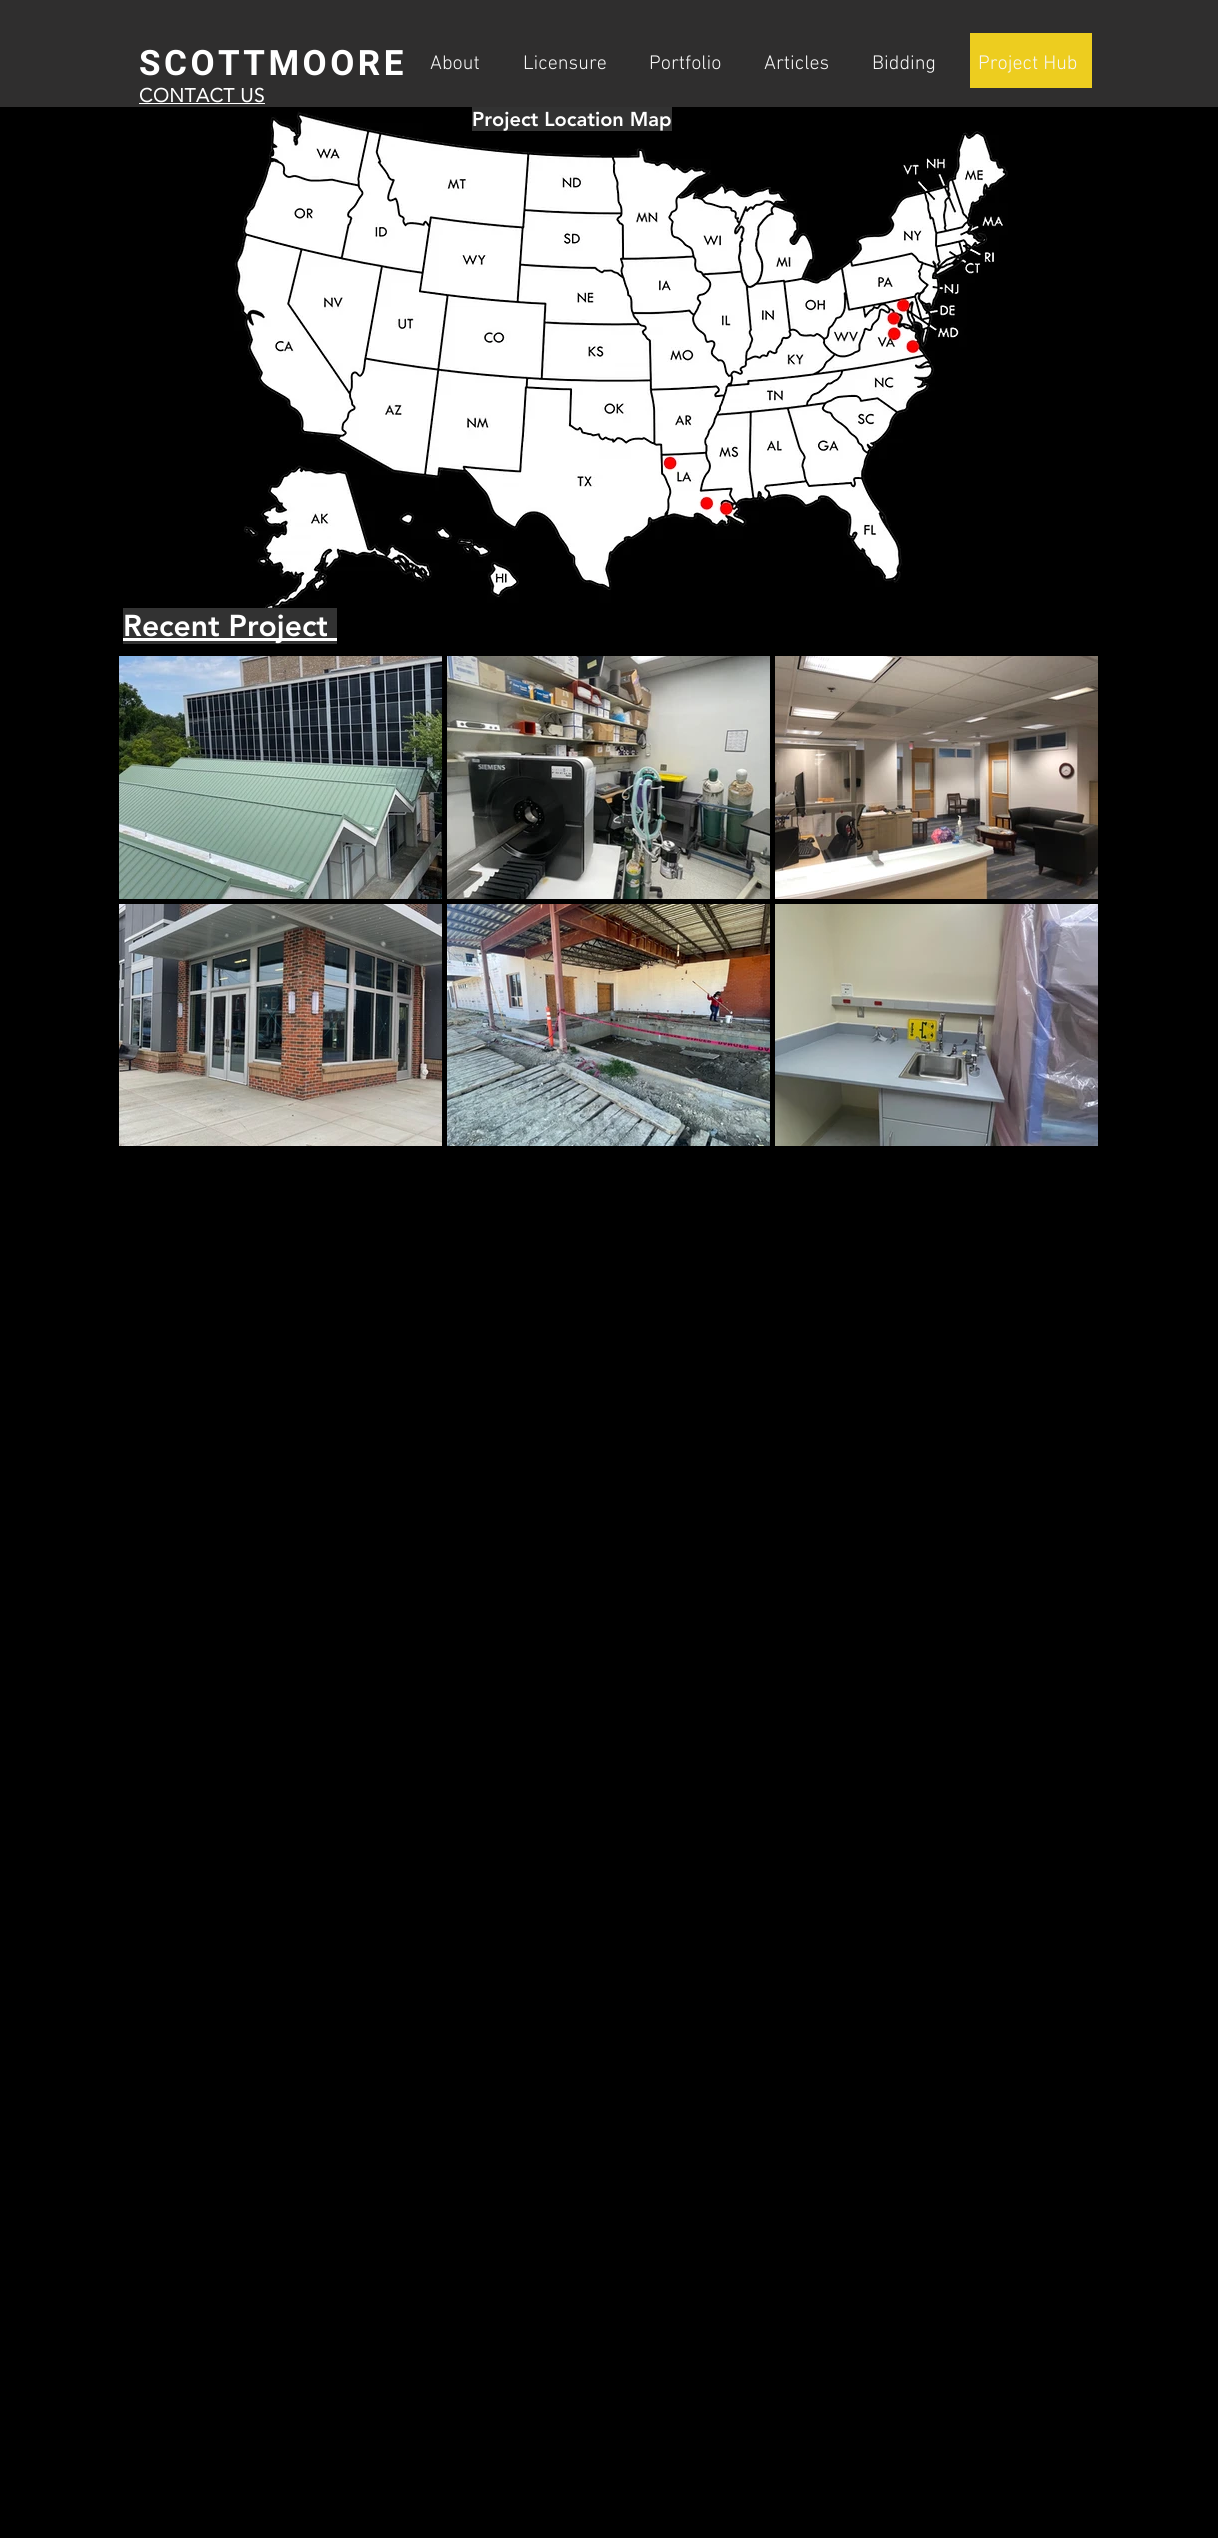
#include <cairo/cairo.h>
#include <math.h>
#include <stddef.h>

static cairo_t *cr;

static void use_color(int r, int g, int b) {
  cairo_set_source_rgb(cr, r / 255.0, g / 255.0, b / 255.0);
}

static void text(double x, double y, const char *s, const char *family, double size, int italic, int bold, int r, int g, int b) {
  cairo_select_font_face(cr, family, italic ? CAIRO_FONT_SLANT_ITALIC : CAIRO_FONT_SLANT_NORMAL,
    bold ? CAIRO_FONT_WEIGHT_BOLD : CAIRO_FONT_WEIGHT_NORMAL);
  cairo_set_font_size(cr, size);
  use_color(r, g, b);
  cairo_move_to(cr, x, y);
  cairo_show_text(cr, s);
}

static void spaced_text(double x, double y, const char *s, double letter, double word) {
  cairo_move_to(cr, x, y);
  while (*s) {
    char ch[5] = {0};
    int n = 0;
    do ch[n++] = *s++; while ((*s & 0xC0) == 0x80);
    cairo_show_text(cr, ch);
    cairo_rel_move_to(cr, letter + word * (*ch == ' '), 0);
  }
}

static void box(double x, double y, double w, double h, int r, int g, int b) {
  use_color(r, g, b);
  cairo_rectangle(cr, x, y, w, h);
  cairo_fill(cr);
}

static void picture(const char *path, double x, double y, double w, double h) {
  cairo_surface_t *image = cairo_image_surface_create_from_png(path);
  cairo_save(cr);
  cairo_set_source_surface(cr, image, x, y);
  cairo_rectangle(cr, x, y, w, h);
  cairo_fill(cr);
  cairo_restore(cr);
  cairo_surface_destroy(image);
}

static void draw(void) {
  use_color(0, 0, 0);
  cairo_paint(cr);
  box(0, 0, 1218, 107, 47, 46, 46);
  box(970, 33, 122, 55, 237, 205, 31);
  box(139, 103, 126, 1, 255, 255, 255);
  picture("img_01.png", 234, 111, 774, 512);
  box(472, 107, 200, 24, 50, 50, 50);
  box(123, 608, 214, 36, 50, 50, 50);
  box(123, 638, 214, 3, 255, 255, 255);
  picture("img_02.png", 119, 656, 323, 243);
  picture("img_03.png", 447, 656, 323, 243);
  picture("img_04.png", 775, 656, 323, 243);
  picture("img_05.png", 119, 904, 323, 242);
  picture("img_06.png", 447, 904, 323, 242);
  picture("img_07.png", 775, 904, 323, 242);
  cairo_select_font_face(cr, "Roboto", CAIRO_FONT_SLANT_NORMAL, CAIRO_FONT_WEIGHT_BOLD);
  cairo_set_font_size(cr, 35);
  spaced_text(139, 75, "SCOTTMOORE", 3.5, 0);
  text(430, 69, "About", "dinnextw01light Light", 20, 0, 0, 247, 247, 247);
  text(523, 69, "Licensure", "dinnextw01light Light", 20, 0, 0, 247, 247, 247);
  text(649, 69, "Portfolio", "dinnextw01light Light", 20, 0, 0, 247, 247, 247);
  text(764, 69, "Articles", "dinnextw01light Light", 20, 0, 0, 247, 247, 247);
  text(872, 69, "Bidding", "dinnextw01light Light", 20, 0, 0, 247, 247, 247);
  text(978, 69, "Project Hub", "dinnextw01light Light", 20, 0, 0, 247, 247, 247);
  cairo_select_font_face(cr, "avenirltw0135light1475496", CAIRO_FONT_SLANT_NORMAL, CAIRO_FONT_WEIGHT_BOLD);
  cairo_set_font_size(cr, 19);
  use_color(255, 255, 255);
  spaced_text(139, 102, "CONTACT US", 0.5, 0);
  text(472, 126, "Project Location Map", "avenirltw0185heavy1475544 Black", 20, 0, 0, 255, 255, 255);
  text(123, 636, "Recent Project", "avenirltw0185heavy1475544 Black", 30, 0, 0, 255, 255, 255);
}

int main(void) {
  cairo_surface_t *surface = cairo_image_surface_create(CAIRO_FORMAT_RGB24, 1218, 2538);
  cr = cairo_create(surface);
  cairo_font_options_t *options = cairo_font_options_create();
  cairo_font_options_set_hint_metrics(options, CAIRO_HINT_METRICS_OFF);
  cairo_font_options_set_hint_style(options, CAIRO_HINT_STYLE_NONE);
  cairo_set_font_options(cr, options);
  cairo_set_miter_limit(cr, 4);
  draw();
  cairo_surface_write_to_png(surface, "out.png");
  cairo_font_options_destroy(options);
  cairo_destroy(cr);
  cairo_surface_destroy(surface);
  return 0;
}
